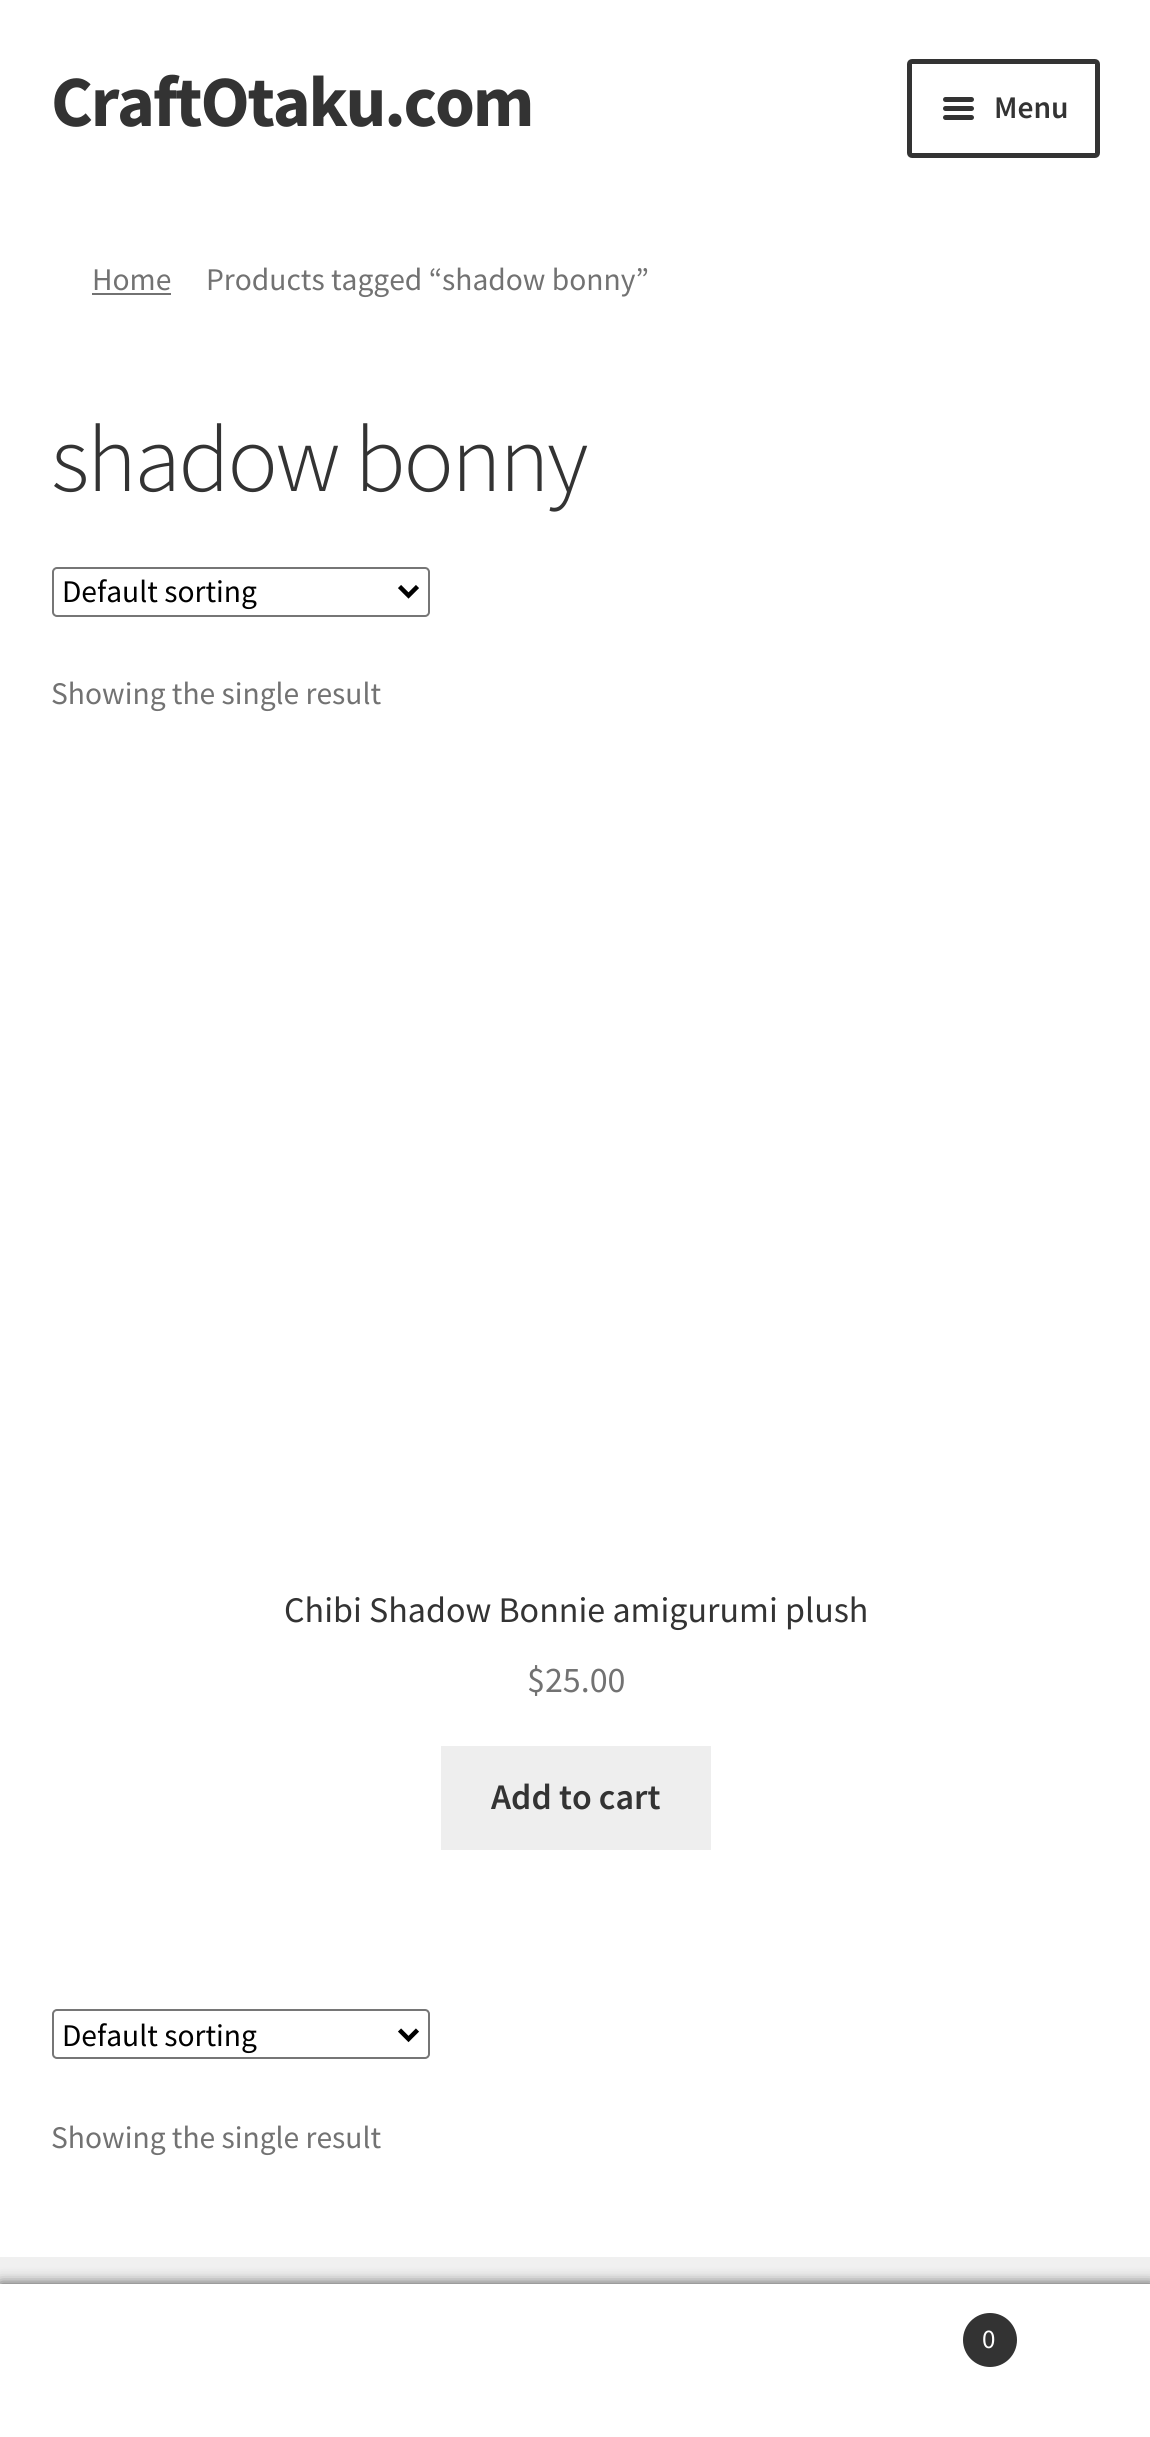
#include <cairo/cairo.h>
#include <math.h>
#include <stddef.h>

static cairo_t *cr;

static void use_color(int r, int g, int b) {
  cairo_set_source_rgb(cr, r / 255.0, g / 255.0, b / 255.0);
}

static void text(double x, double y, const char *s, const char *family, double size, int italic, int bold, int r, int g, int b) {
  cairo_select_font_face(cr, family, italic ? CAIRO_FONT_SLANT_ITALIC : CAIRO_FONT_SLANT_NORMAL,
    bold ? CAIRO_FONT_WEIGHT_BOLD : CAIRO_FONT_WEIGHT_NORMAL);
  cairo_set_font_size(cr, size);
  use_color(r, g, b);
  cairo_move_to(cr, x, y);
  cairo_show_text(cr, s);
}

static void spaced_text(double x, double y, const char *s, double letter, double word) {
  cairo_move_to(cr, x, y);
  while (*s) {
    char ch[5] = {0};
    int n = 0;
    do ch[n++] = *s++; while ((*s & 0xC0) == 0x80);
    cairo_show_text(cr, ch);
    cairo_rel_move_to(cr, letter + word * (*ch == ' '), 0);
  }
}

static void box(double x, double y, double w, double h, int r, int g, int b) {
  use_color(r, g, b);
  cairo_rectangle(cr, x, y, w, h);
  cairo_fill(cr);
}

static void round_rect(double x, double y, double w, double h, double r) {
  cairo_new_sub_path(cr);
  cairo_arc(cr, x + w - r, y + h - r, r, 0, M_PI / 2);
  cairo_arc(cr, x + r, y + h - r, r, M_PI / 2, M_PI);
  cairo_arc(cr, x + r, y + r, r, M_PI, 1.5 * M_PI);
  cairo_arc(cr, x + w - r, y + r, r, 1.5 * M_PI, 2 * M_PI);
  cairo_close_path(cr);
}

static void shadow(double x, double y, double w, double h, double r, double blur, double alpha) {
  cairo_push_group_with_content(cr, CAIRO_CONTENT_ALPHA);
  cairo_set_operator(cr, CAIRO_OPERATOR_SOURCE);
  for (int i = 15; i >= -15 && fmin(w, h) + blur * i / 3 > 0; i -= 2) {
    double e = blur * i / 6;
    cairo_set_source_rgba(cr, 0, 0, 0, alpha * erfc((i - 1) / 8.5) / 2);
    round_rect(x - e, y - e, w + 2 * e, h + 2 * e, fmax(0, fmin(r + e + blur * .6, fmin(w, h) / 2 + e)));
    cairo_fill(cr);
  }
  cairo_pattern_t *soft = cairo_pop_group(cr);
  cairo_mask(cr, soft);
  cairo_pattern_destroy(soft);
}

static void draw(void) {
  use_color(255, 255, 255);
  cairo_paint(cr);
  round_rect(909.5, 61.5, 188, 94, 2.5);
  use_color(51, 51, 51);
  cairo_set_line_width(cr, 5);
  cairo_stroke(cr);
  round_rect(943, 97, 31, 5, 2.5);
  cairo_fill(cr);
  round_rect(943, 106, 31, 5, 2.5);
  cairo_fill(cr);
  round_rect(943, 115, 31, 5, 2.5);
  cairo_fill(cr);
  box(92, 293, 79, 2, 114, 114, 114);
  round_rect(53, 568, 376, 48, 4);
  use_color(118, 118, 118);
  cairo_set_line_width(cr, 2);
  cairo_stroke(cr);
  cairo_new_path(cr);
  cairo_move_to(cr, 399.5, 586.5);
  cairo_line_to(cr, 408.5, 595.5);
  cairo_line_to(cr, 417.5, 586.5);
  use_color(0, 0, 0);
  cairo_set_line_width(cr, 4.5);
  cairo_stroke(cr);
  box(441, 1746, 270, 104, 238, 238, 238);
  round_rect(53, 2010, 376, 48, 4);
  use_color(118, 118, 118);
  cairo_set_line_width(cr, 2);
  cairo_stroke(cr);
  cairo_new_path(cr);
  cairo_move_to(cr, 399.5, 2030);
  cairo_line_to(cr, 408.5, 2039);
  cairo_line_to(cr, 417.5, 2030);
  use_color(0, 0, 0);
  cairo_set_line_width(cr, 4.5);
  cairo_stroke(cr);
  box(0, 2257, 1150, 27, 240, 240, 240);
  use_color(0, 0, 0);
  shadow(0, 2284, 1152, 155, 0, 7, 0.7);
  box(0, 2284, 1150, 2, 255, 255, 255);
  box(0, 2286, 1150, 151, 255, 255, 255);
  use_color(51, 51, 51);
  cairo_arc(cr, 990, 2340, 28, 0, 2 * M_PI);
  cairo_fill_preserve(cr);
  use_color(255, 255, 255);
  cairo_set_line_width(cr, 2);
  cairo_stroke(cr);
  cairo_select_font_face(cr, "Source Sans Pro", CAIRO_FONT_SLANT_NORMAL, CAIRO_FONT_WEIGHT_BOLD);
  cairo_set_font_size(cr, 72);
  use_color(51, 51, 51);
  spaced_text(51, 126, "CraftOtaku.com", -2.25, 0);
  text(994, 118, "Menu", "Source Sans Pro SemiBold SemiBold", 31.5, 0, 0, 51, 51, 51);
  text(92, 290, "Home", "Source Sans Pro", 31.5, 0, 0, 114, 114, 114);
  text(206, 290, "Products tagged “shadow bonny”", "Source Sans Pro", 31.5, 0, 0, 114, 114, 114);
  cairo_select_font_face(cr, "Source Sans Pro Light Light", CAIRO_FONT_SLANT_NORMAL, CAIRO_FONT_WEIGHT_NORMAL);
  cairo_set_font_size(cr, 94.25);
  use_color(51, 51, 51);
  spaced_text(51, 491, "shadow bonny", -2.25, 0);
  text(62, 602, "Default sorting", "Source Sans Pro", 31.5, 0, 0, 0, 0, 0);
  text(51, 704, "Showing the single result", "Source Sans Pro", 31.5, 0, 0, 114, 114, 114);
  text(284, 1622, "Chibi Shadow Bonnie amigurumi plush", "Source Sans Pro", 36, 0, 0, 51, 51, 51);
  text(527, 1692, "$25.00", "Source Sans Pro", 36, 0, 0, 114, 114, 114);
  text(491, 1809, "Add to cart", "Source Sans Pro SemiBold SemiBold", 36, 0, 0, 51, 51, 51);
  text(62, 2046, "Default sorting", "Source Sans Pro", 31.5, 0, 0, 0, 0, 0);
  text(51, 2148, "Showing the single result", "Source Sans Pro", 31.5, 0, 0, 114, 114, 114);
  text(982, 2348, "0", "Source Sans Pro", 27, 0, 0, 255, 255, 255);
}

int main(void) {
  cairo_surface_t *surface = cairo_image_surface_create(CAIRO_FORMAT_RGB24, 1150, 2437);
  cr = cairo_create(surface);
  cairo_font_options_t *options = cairo_font_options_create();
  cairo_font_options_set_hint_metrics(options, CAIRO_HINT_METRICS_OFF);
  cairo_font_options_set_hint_style(options, CAIRO_HINT_STYLE_NONE);
  cairo_set_font_options(cr, options);
  cairo_set_miter_limit(cr, 4);
  draw();
  cairo_surface_write_to_png(surface, "out.png");
  cairo_font_options_destroy(options);
  cairo_destroy(cr);
  cairo_surface_destroy(surface);
  return 0;
}
